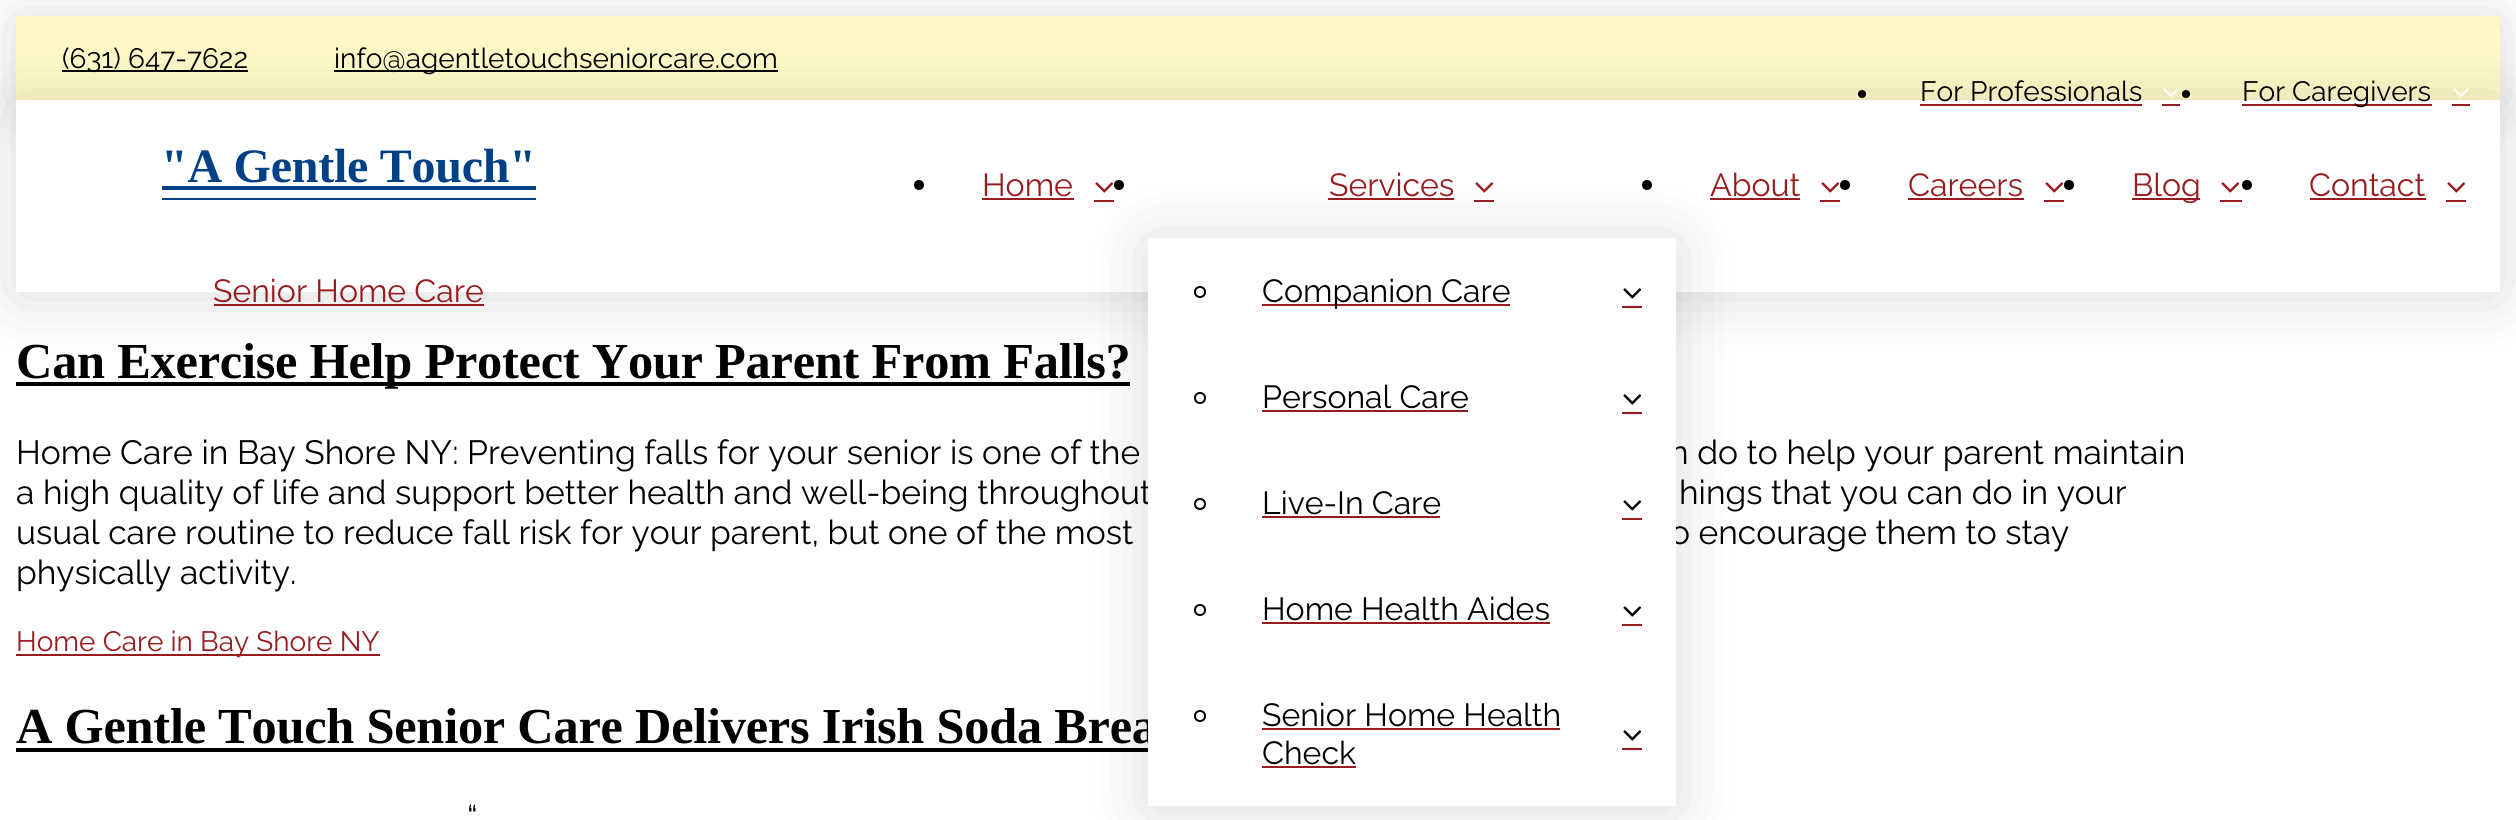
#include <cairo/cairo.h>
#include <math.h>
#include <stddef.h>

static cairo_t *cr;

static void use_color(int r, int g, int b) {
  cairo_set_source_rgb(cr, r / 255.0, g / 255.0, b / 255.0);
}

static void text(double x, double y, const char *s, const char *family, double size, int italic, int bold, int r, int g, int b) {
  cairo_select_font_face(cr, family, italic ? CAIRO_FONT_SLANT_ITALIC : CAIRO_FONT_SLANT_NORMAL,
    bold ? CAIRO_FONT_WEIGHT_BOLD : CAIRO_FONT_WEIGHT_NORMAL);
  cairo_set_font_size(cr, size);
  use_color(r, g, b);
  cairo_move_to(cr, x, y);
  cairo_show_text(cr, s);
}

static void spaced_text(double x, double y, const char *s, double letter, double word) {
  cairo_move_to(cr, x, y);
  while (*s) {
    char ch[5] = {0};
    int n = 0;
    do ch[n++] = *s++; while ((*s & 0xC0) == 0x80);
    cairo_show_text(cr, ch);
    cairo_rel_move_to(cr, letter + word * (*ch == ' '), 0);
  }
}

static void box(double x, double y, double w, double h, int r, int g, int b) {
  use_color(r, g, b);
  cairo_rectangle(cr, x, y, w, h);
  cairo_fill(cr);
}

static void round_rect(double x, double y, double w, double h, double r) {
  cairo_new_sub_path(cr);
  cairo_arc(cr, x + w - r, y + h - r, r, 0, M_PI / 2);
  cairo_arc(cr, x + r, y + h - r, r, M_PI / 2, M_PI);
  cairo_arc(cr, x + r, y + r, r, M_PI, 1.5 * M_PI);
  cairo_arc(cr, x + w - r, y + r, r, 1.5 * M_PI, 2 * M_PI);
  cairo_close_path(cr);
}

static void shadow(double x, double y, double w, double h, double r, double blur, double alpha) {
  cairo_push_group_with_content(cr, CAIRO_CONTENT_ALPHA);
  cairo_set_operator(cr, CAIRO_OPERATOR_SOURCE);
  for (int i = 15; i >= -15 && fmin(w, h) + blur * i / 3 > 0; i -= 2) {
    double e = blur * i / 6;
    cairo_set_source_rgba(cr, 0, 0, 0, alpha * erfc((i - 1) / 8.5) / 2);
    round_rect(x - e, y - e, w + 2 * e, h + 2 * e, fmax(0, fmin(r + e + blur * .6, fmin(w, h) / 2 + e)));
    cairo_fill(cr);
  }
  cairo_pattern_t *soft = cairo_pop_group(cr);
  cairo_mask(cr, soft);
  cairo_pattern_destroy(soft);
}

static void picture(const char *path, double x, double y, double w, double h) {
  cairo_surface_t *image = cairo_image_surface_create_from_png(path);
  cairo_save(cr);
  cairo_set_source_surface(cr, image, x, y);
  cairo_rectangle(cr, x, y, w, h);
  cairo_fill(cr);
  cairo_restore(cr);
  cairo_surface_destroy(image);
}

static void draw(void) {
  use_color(255, 255, 255);
  cairo_paint(cr);
  use_color(0, 0, 0);
  shadow(16, 20, 2484, 84, 0, 28, 0.15);
  box(16, 16, 2484, 84, 254, 249, 199);
  use_color(0, 0, 0);
  shadow(16, 104, 2484, 192, 0, 32, 0.15);
  box(62, 70, 186, 2, 0, 0, 0);
  box(334, 70, 444, 2, 0, 0, 0);
  cairo_arc(cr, 1862, 94, 4, 0, 2 * M_PI);
  cairo_fill(cr);
  box(16, 100, 2484, 192, 255, 255, 255);
  box(1920, 104, 222, 2, 152, 27, 31);
  box(2162, 104, 18, 2, 152, 27, 31);
  picture("img_01.png", 2163, 88, 16, 10);
  use_color(0, 0, 0);
  cairo_arc(cr, 2186, 94, 4, 0, 2 * M_PI);
  cairo_fill(cr);
  box(2242, 104, 190, 2, 152, 27, 31);
  box(2452, 104, 18, 2, 152, 27, 31);
  picture("img_02.png", 2453, 88, 16, 10);
  box(162, 198, 374, 2, 0, 65, 133);
  box(162, 186, 374, 4, 0, 65, 133);
  box(214, 304, 270, 2, 152, 27, 31);
  use_color(0, 0, 0);
  cairo_arc(cr, 919, 185, 5, 0, 2 * M_PI);
  cairo_fill(cr);
  box(982, 198, 92, 2, 152, 27, 31);
  box(1094, 200, 20, 2, 152, 27, 31);
  picture("img_03.png", 1095, 182, 19, 11);
  box(16, 382, 1114, 4, 0, 0, 0);
  box(16, 748, 1132, 4, 0, 0, 0);
  use_color(0, 0, 0);
  shadow(1148, 242, 528, 568, 0, 32, 0.15);
  use_color(0, 0, 0);
  cairo_arc(cr, 1119, 185, 5, 0, 2 * M_PI);
  cairo_fill(cr);
  box(1328, 198, 126, 2, 152, 27, 31);
  box(1474, 200, 20, 2, 152, 27, 31);
  picture("img_04.png", 1475, 182, 19, 11);
  use_color(0, 0, 0);
  cairo_arc(cr, 1647, 185, 5, 0, 2 * M_PI);
  cairo_fill(cr);
  box(1710, 198, 90, 2, 152, 27, 31);
  box(1820, 200, 20, 2, 152, 27, 31);
  picture("img_03.png", 1821, 182, 19, 11);
  use_color(0, 0, 0);
  cairo_arc(cr, 1845, 185, 5, 0, 2 * M_PI);
  cairo_fill(cr);
  box(1908, 198, 116, 2, 152, 27, 31);
  box(2044, 200, 20, 2, 152, 27, 31);
  picture("img_03.png", 2045, 182, 19, 11);
  use_color(0, 0, 0);
  cairo_arc(cr, 2069, 185, 5, 0, 2 * M_PI);
  cairo_fill(cr);
  box(2132, 198, 68, 2, 152, 27, 31);
  box(2220, 200, 22, 2, 152, 27, 31);
  picture("img_03.png", 2221, 182, 19, 11);
  use_color(0, 0, 0);
  cairo_arc(cr, 2247, 185, 5, 0, 2 * M_PI);
  cairo_fill(cr);
  box(2310, 198, 116, 2, 152, 27, 31);
  box(2446, 200, 20, 2, 152, 27, 31);
  picture("img_03.png", 2447, 182, 19, 11);
  box(16, 654, 364, 2, 152, 27, 31);
  text(62, 68, "(631) 647-7622", "Raleway", 28, 0, 0, 0, 0, 0);
  text(334, 68, "info@agentletouchseniorcare.com", "Raleway", 28, 0, 0, 0, 0, 0);
  text(1920, 101, "For Professionals", "Raleway", 28, 0, 0, 0, 0, 0);
  text(2242, 101, "For Caregivers", "Raleway", 28, 0, 0, 0, 0, 0);
  cairo_select_font_face(cr, "Liberation Serif", CAIRO_FONT_SLANT_NORMAL, CAIRO_FONT_WEIGHT_BOLD);
  cairo_set_font_size(cr, 48);
  use_color(0, 65, 133);
  spaced_text(161, 182, "\"A Gentle Touch\"", -0.25, 0);
  text(213, 302, "Senior Home Care", "Raleway", 32, 0, 0, 152, 27, 31);
  text(982, 196, "Home", "Raleway", 32, 0, 0, 152, 27, 31);
  text(1329, 196, "Services", "Raleway", 32, 0, 0, 152, 27, 31);
  text(1710, 196, "About", "Raleway", 32, 0, 0, 152, 27, 31);
  text(1908, 196, "Careers", "Raleway", 32, 0, 0, 152, 27, 31);
  text(2132, 196, "Blog", "Raleway", 32, 0, 0, 152, 27, 31);
  text(2309, 196, "Contact", "Raleway", 32, 0, 0, 152, 27, 31);
  cairo_select_font_face(cr, "Liberation Serif", CAIRO_FONT_SLANT_NORMAL, CAIRO_FONT_WEIGHT_BOLD);
  cairo_set_font_size(cr, 50.4);
  use_color(0, 0, 0);
  spaced_text(16, 378, "Can Exercise Help Protect Your Parent From Falls?", -0.25, 0);
  text(16, 464, "Home Care in Bay Shore NY: Preventing falls for your senior is one of the", "Raleway", 33.6, 0, 0, 0, 0, 0);
  text(1669, 464, "n do to help your parent maintain", "Raleway", 33.6, 0, 0, 0, 0, 0);
  text(16, 504, "a high quality of life and support better health and well-being throughout", "Raleway", 33.6, 0, 0, 0, 0, 0);
  text(1679, 504, "hings that you can do in your", "Raleway", 33.6, 0, 0, 0, 0, 0);
  text(16, 544, "usual care routine to reduce fall risk for your parent, but one of the most", "Raleway", 33.6, 0, 0, 0, 0, 0);
  text(1670, 544, "o encourage them to stay", "Raleway", 33.6, 0, 0, 0, 0, 0);
  text(16, 584, "physically activity.", "Raleway", 33.6, 0, 0, 0, 0, 0);
  text(16, 651, "Home Care in Bay Shore NY", "Raleway", 28, 0, 0, 152, 27, 31);
  cairo_select_font_face(cr, "Liberation Serif", CAIRO_FONT_SLANT_NORMAL, CAIRO_FONT_WEIGHT_BOLD);
  cairo_set_font_size(cr, 50.4);
  use_color(0, 0, 0);
  spaced_text(16, 743, "A Gentle Touch Senior Care Delivers Irish Soda Brea", -0.25, 0);
  box(1148, 238, 528, 568, 255, 255, 255);
  picture("img_05.png", 1623, 730, 19, 11);
  box(1622, 748, 20, 2, 152, 27, 31);
  text(1262, 764, "Check", "Raleway", 32, 0, 0, 0, 0, 0);
  box(1262, 766, 94, 2, 152, 27, 31);
  text(1262, 726, "Senior Home Health", "Raleway", 32, 0, 0, 0, 0, 0);
  box(1262, 728, 298, 2, 152, 27, 31);
  cairo_new_path(cr);
  cairo_arc(cr, 1200, 716, 5, 0, 2 * M_PI);
  use_color(0, 0, 0);
  cairo_stroke(cr);
  picture("img_05.png", 1623, 606, 19, 11);
  box(1622, 624, 20, 2, 152, 27, 31);
  text(1262, 620, "Home Health Aides", "Raleway", 32, 0, 0, 0, 0, 0);
  box(1262, 622, 288, 2, 152, 27, 31);
  cairo_new_path(cr);
  cairo_arc(cr, 1200, 610, 5, 0, 2 * M_PI);
  use_color(0, 0, 0);
  cairo_stroke(cr);
  picture("img_05.png", 1623, 500, 19, 11);
  box(1622, 518, 20, 2, 152, 27, 31);
  text(1262, 514, "Live-In Care", "Raleway", 32, 0, 0, 0, 0, 0);
  box(1262, 516, 178, 2, 152, 27, 31);
  cairo_new_path(cr);
  cairo_arc(cr, 1200, 504, 5, 0, 2 * M_PI);
  use_color(0, 0, 0);
  cairo_stroke(cr);
  picture("img_05.png", 1623, 394, 19, 11);
  box(1622, 412, 20, 2, 152, 27, 31);
  text(1262, 408, "Personal Care", "Raleway", 32, 0, 0, 0, 0, 0);
  box(1262, 410, 206, 2, 152, 27, 31);
  cairo_new_path(cr);
  cairo_arc(cr, 1200, 398, 5, 0, 2 * M_PI);
  use_color(0, 0, 0);
  cairo_stroke(cr);
  picture("img_05.png", 1623, 288, 19, 11);
  box(1622, 306, 20, 2, 152, 27, 31);
  box(1262, 304, 248, 2, 152, 27, 31);
  text(1262, 302, "Companion Care", "Raleway", 32, 0, 0, 0, 0, 0);
  cairo_new_path(cr);
  cairo_arc(cr, 1200, 292, 5, 0, 2 * M_PI);
  cairo_stroke(cr);
  text(467, 829, "“", "Raleway", 33.6, 0, 0, 0, 0, 0);
}

int main(void) {
  cairo_surface_t *surface = cairo_image_surface_create(CAIRO_FORMAT_RGB24, 2516, 820);
  cr = cairo_create(surface);
  cairo_font_options_t *options = cairo_font_options_create();
  cairo_font_options_set_hint_metrics(options, CAIRO_HINT_METRICS_OFF);
  cairo_font_options_set_hint_style(options, CAIRO_HINT_STYLE_NONE);
  cairo_set_font_options(cr, options);
  cairo_set_miter_limit(cr, 4);
  draw();
  cairo_surface_write_to_png(surface, "out.png");
  cairo_font_options_destroy(options);
  cairo_destroy(cr);
  cairo_surface_destroy(surface);
  return 0;
}
